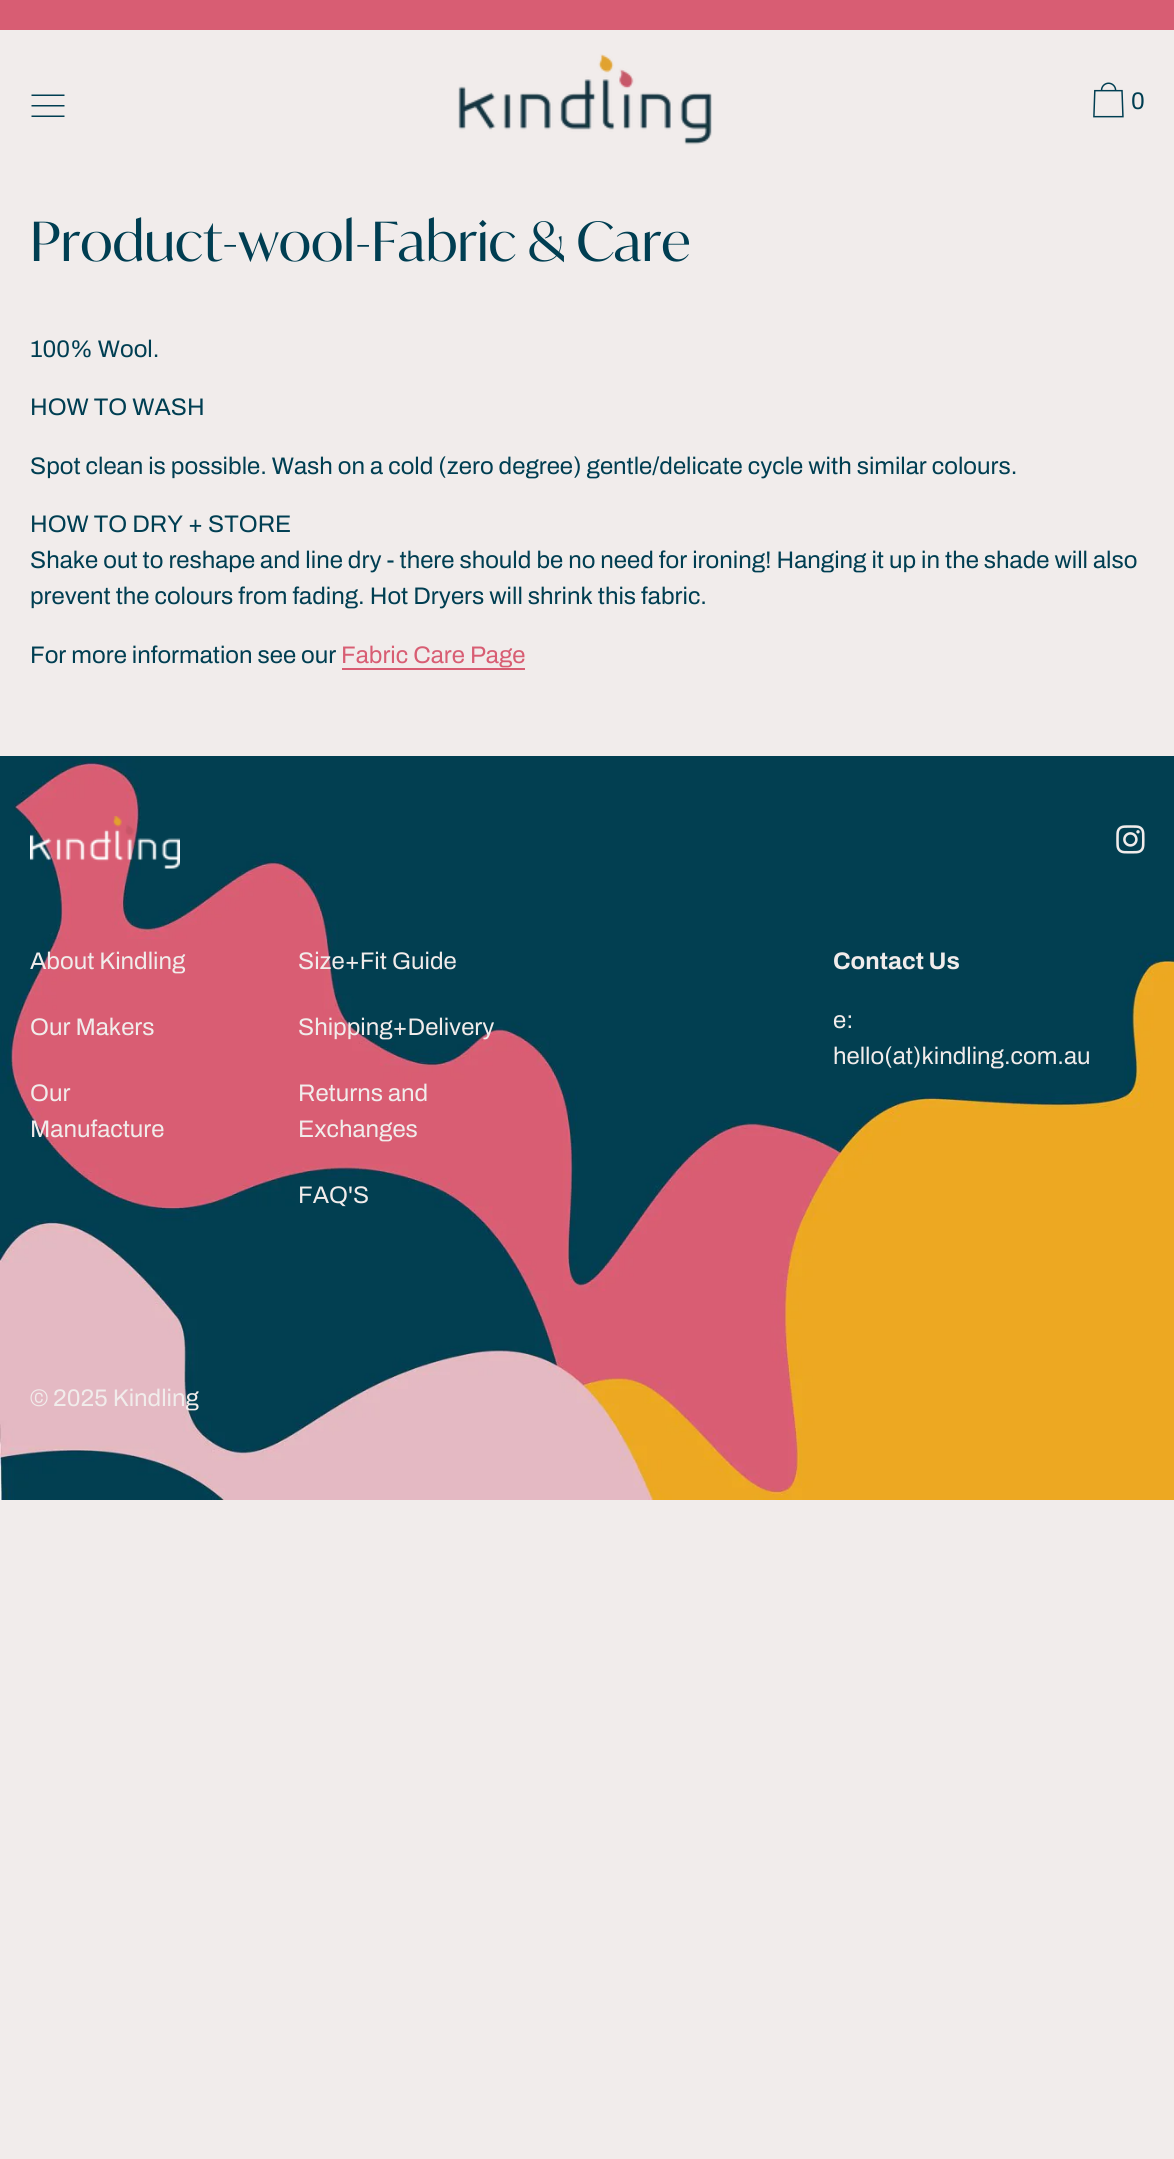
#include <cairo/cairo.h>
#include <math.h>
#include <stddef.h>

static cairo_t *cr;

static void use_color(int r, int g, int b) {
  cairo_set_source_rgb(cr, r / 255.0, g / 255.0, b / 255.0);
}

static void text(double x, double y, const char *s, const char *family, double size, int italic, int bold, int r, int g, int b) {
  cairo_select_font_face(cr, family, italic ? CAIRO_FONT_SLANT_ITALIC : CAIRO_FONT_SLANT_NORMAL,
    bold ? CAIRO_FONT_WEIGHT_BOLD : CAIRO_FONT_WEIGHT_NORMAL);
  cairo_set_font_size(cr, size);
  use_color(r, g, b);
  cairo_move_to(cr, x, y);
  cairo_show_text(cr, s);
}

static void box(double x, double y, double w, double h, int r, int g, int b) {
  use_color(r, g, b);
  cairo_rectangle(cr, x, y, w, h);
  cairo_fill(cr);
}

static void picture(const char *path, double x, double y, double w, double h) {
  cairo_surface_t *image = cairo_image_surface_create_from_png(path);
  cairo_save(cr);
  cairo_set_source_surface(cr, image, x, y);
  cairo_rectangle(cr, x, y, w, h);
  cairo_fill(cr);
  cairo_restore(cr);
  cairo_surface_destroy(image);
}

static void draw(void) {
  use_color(241, 236, 235);
  cairo_paint(cr);
  box(0, 0, 1174, 30, 216, 93, 115);
  use_color(0, 62, 82);
  cairo_set_fill_rule(cr, CAIRO_FILL_RULE_EVEN_ODD);
  cairo_new_path(cr);
  cairo_move_to(cr, 31.5, 115.5);
  cairo_line_to(cr, 64.5, 115.5);
  cairo_line_to(cr, 64.5, 117);
  cairo_line_to(cr, 31.5, 117);
  cairo_close_path(cr);
  cairo_move_to(cr, 31.5, 105);
  cairo_line_to(cr, 64.5, 105);
  cairo_line_to(cr, 64.5, 106.5);
  cairo_line_to(cr, 31.5, 106.5);
  cairo_close_path(cr);
  cairo_move_to(cr, 31.5, 94.5);
  cairo_line_to(cr, 64.5, 94.5);
  cairo_line_to(cr, 64.5, 96);
  cairo_line_to(cr, 31.5, 96);
  cairo_close_path(cr);
  cairo_fill(cr);
  picture("img_01.png", 458, 54, 254, 91);
  picture("img_02.png", 1093, 82, 31, 36);
  box(342, 668, 183, 2, 216, 93, 115);
  picture("img_03.png", 0, 756, 1174, 744);
  picture("img_04.png", 30, 816, 150, 53);
  picture("img_05.png", 1116, 825, 29, 29);
  text(1131, 109, "0", "Archivo", 24, 0, 0, 0, 62, 82);
  text(30, 261, "Product-wool-Fabric & Care", "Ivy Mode", 54, 0, 0, 0, 62, 82);
  text(30, 357, "100% Wool.", "Archivo", 24, 0, 0, 0, 62, 82);
  text(30, 415, "HOW TO WASH", "Archivo", 24, 0, 0, 0, 62, 82);
  text(30, 474, "Spot clean is possible. Wash on a cold (zero degree) gentle/delicate cycle with similar colours.", "Archivo", 24, 0, 0, 0, 62, 82);
  text(30, 532, "HOW TO DRY + STORE", "Archivo", 24, 0, 0, 0, 62, 82);
  text(30, 568, "Shake out to reshape and line dry - there should be no need for ironing! Hanging it up in the shade will also", "Archivo", 24, 0, 0, 0, 62, 82);
  text(30, 604, "prevent the colours from fading. Hot Dryers will shrink this fabric.", "Archivo", 24, 0, 0, 0, 62, 82);
  text(30, 663, "For more information see our", "Archivo", 24, 0, 0, 0, 62, 82);
  text(341, 663, "Fabric Care Page", "Archivo", 24, 0, 0, 216, 93, 115);
  text(30, 969, "About Kindling", "Archivo", 24, 0, 0, 241, 236, 235);
  text(30, 1035, "Our Makers", "Archivo", 24, 0, 0, 241, 236, 235);
  text(30, 1101, "Our", "Archivo", 24, 0, 0, 241, 236, 235);
  text(30, 1137, "Manufacture", "Archivo", 24, 0, 0, 241, 236, 235);
  text(298, 969, "Size+Fit Guide", "Archivo", 24, 0, 0, 241, 236, 235);
  text(298, 1035, "Shipping+Delivery", "Archivo", 24, 0, 0, 241, 236, 235);
  text(298, 1101, "Returns and", "Archivo", 24, 0, 0, 241, 236, 235);
  text(298, 1137, "Exchanges", "Archivo", 24, 0, 0, 241, 236, 235);
  text(298, 1203, "FAQ'S", "Archivo", 24, 0, 0, 241, 236, 235);
  text(833, 969, "Contact Us", "Archivo", 24, 0, 1, 241, 236, 235);
  text(833, 1028, "e:", "Archivo", 24, 0, 0, 241, 236, 235);
  text(833, 1064, "hello(at)kindling.com.au", "Archivo", 24, 0, 0, 241, 236, 235);
  text(30, 1406, "© 2025 Kindling", "Archivo", 24, 0, 0, 241, 236, 235);
}

int main(void) {
  cairo_surface_t *surface = cairo_image_surface_create(CAIRO_FORMAT_RGB24, 1174, 2159);
  cr = cairo_create(surface);
  cairo_font_options_t *options = cairo_font_options_create();
  cairo_font_options_set_hint_metrics(options, CAIRO_HINT_METRICS_OFF);
  cairo_font_options_set_hint_style(options, CAIRO_HINT_STYLE_NONE);
  cairo_set_font_options(cr, options);
  cairo_set_miter_limit(cr, 4);
  draw();
  cairo_surface_write_to_png(surface, "out.png");
  cairo_font_options_destroy(options);
  cairo_destroy(cr);
  cairo_surface_destroy(surface);
  return 0;
}
